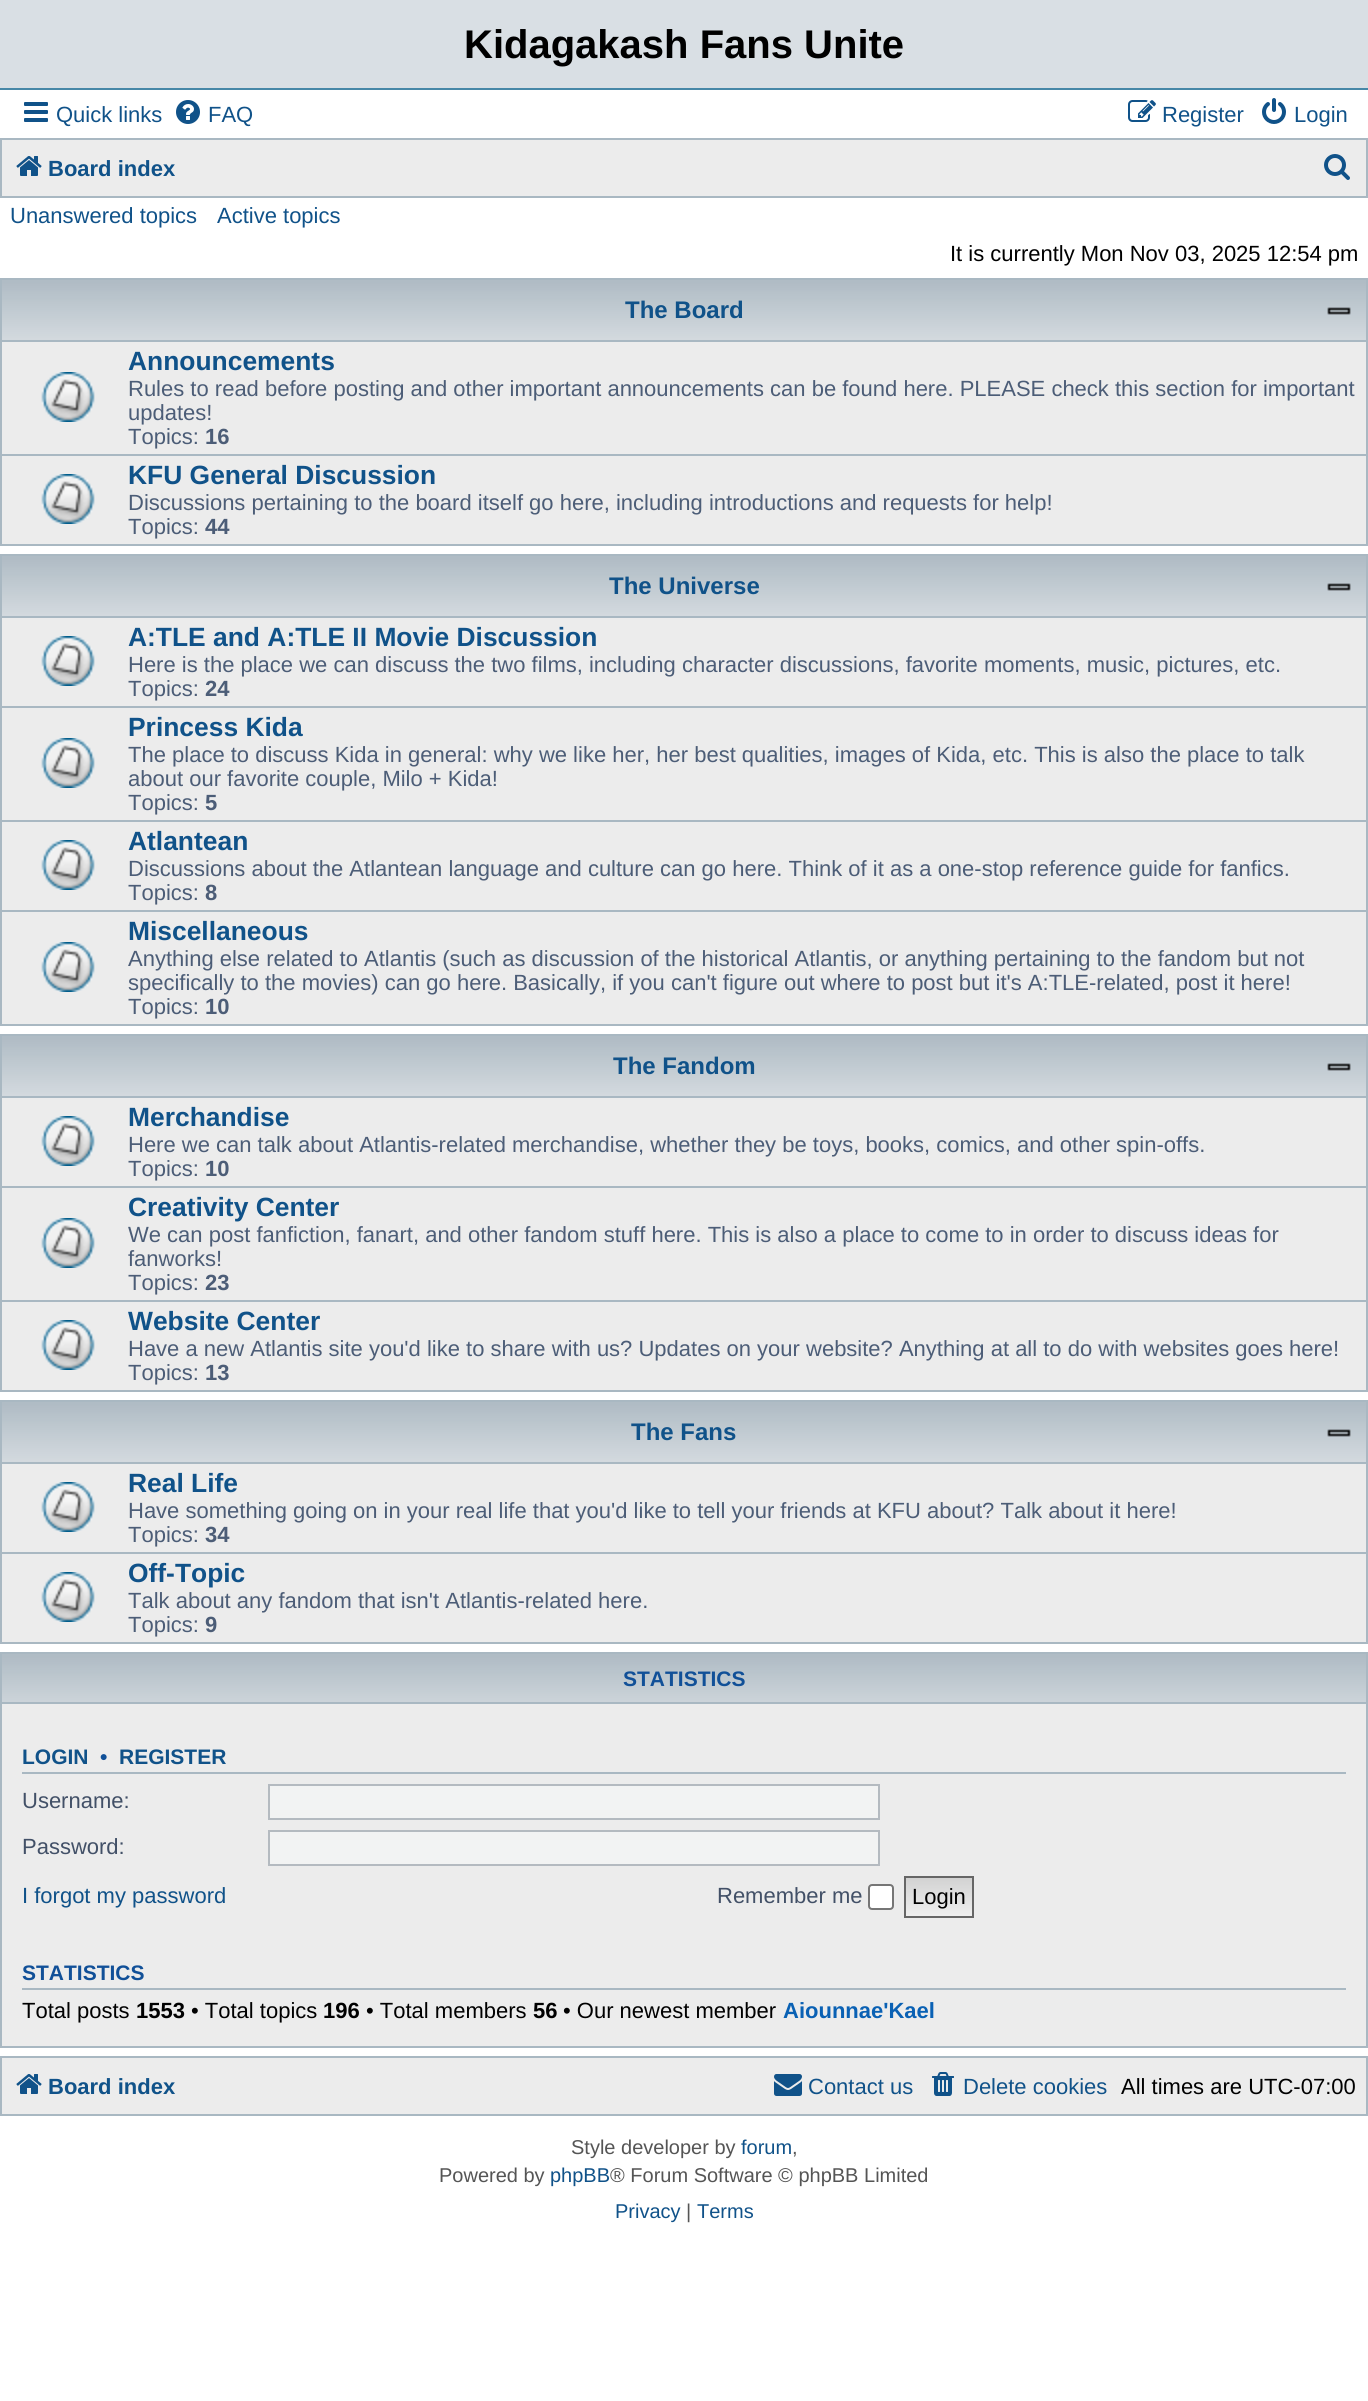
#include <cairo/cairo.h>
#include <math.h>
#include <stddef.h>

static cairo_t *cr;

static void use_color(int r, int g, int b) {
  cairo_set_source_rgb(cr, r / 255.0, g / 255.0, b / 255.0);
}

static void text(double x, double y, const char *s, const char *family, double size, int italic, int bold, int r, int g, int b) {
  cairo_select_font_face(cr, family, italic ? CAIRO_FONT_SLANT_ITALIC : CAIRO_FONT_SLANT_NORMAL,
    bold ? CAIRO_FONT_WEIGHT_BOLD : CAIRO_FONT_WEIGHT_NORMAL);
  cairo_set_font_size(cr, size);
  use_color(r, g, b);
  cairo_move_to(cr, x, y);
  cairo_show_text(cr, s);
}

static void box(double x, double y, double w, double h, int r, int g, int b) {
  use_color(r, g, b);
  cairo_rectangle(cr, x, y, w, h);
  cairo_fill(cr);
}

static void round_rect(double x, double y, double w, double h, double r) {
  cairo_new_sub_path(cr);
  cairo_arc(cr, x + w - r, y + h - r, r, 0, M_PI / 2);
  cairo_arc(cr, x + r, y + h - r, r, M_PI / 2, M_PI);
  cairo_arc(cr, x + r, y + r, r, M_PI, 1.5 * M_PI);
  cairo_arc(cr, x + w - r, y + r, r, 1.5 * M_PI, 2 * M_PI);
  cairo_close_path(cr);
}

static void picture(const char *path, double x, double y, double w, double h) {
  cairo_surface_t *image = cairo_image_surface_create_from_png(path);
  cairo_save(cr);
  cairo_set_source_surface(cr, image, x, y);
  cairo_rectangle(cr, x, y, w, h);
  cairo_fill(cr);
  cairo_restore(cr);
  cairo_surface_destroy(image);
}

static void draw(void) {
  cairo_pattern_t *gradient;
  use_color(255, 255, 255);
  cairo_paint(cr);
  box(0, 0, 1368, 88, 217, 223, 228);
  box(0, 88, 1368, 2, 71, 135, 167);
  picture("img_01.png", 24, 102, 24, 20);
  picture("img_02.png", 176, 100, 24, 24);
  picture("img_03.png", 1128, 100, 28, 22);
  picture("img_04.png", 1262, 98, 24, 26);
  use_color(236, 236, 236);
  cairo_rectangle(cr, 1, 139, 1366, 58);
  cairo_fill_preserve(cr);
  use_color(169, 184, 194);
  cairo_stroke(cr);
  picture("img_05.png", 16, 156, 26, 20);
  picture("img_06.png", 1324, 154, 26, 26);
  box(2, 342, 1364, 202, 236, 236, 236);
  picture("img_07.png", 2, 280, 1364, 60);
  cairo_rectangle(cr, 1, 279, 1366, 266);
  use_color(169, 184, 194);
  cairo_stroke(cr);
  picture("img_08.png", 1327, 307, 24, 8);
  box(2, 340, 1364, 2, 169, 184, 194);
  picture("img_09.png", 41, 372, 54, 50);
  box(2, 454, 1364, 2, 169, 184, 194);
  picture("img_09.png", 41, 474, 54, 50);
  box(2, 618, 1364, 406, 236, 236, 236);
  picture("img_07.png", 2, 556, 1364, 60);
  cairo_rectangle(cr, 1, 555, 1366, 470);
  use_color(169, 184, 194);
  cairo_stroke(cr);
  picture("img_08.png", 1327, 583, 24, 8);
  box(2, 616, 1364, 2, 169, 184, 194);
  picture("img_09.png", 41, 636, 54, 50);
  box(2, 706, 1364, 2, 169, 184, 194);
  picture("img_09.png", 41, 738, 54, 50);
  box(2, 820, 1364, 2, 169, 184, 194);
  picture("img_09.png", 41, 840, 54, 50);
  box(2, 910, 1364, 2, 169, 184, 194);
  picture("img_09.png", 41, 942, 54, 50);
  box(2, 1098, 1364, 292, 236, 236, 236);
  picture("img_07.png", 2, 1036, 1364, 60);
  cairo_rectangle(cr, 1, 1035, 1366, 356);
  use_color(169, 184, 194);
  cairo_stroke(cr);
  picture("img_08.png", 1327, 1063, 24, 8);
  box(2, 1096, 1364, 2, 169, 184, 194);
  picture("img_09.png", 41, 1116, 54, 50);
  box(2, 1186, 1364, 2, 169, 184, 194);
  picture("img_09.png", 41, 1218, 54, 50);
  box(2, 1300, 1364, 2, 169, 184, 194);
  picture("img_09.png", 41, 1320, 54, 50);
  box(2, 1464, 1364, 178, 236, 236, 236);
  picture("img_07.png", 2, 1402, 1364, 60);
  cairo_rectangle(cr, 1, 1401, 1366, 242);
  use_color(169, 184, 194);
  cairo_stroke(cr);
  picture("img_08.png", 1327, 1429, 24, 8);
  box(2, 1462, 1364, 2, 169, 184, 194);
  picture("img_09.png", 41, 1482, 54, 50);
  box(2, 1552, 1364, 2, 169, 184, 194);
  picture("img_09.png", 41, 1572, 54, 50);
  box(2, 1704, 1364, 342, 236, 236, 236);
  cairo_rectangle(cr, 1, 1653, 1366, 394);
  use_color(169, 184, 194);
  cairo_stroke(cr);
  picture("img_10.png", 2, 1654, 1364, 48);
  box(2, 1702, 1364, 2, 169, 184, 194);
  box(22, 1772, 1324, 2, 169, 184, 194);
  use_color(242, 243, 243);
  cairo_rectangle(cr, 269, 1785, 610, 34);
  cairo_fill_preserve(cr);
  use_color(180, 186, 192);
  cairo_stroke(cr);
  use_color(242, 243, 243);
  cairo_rectangle(cr, 269, 1831, 610, 34);
  cairo_fill_preserve(cr);
  use_color(180, 186, 192);
  cairo_stroke(cr);
  use_color(255, 255, 255);
  round_rect(869, 1885, 24, 24, 3);
  cairo_fill_preserve(cr);
  use_color(118, 118, 118);
  cairo_stroke(cr);
  gradient = cairo_pattern_create_linear(939, 1878, 939, 1916);
  cairo_pattern_add_color_stop_rgba(gradient, 0, 0.824, 0.824, 0.824, 1);
  cairo_pattern_add_color_stop_rgba(gradient, 1, 0.937, 0.937, 0.937, 1);
  cairo_set_source(cr, gradient);
  cairo_pattern_destroy(gradient);
  cairo_rectangle(cr, 906, 1878, 66, 38);
  cairo_fill(cr);
  cairo_rectangle(cr, 905, 1877, 68, 40);
  use_color(102, 102, 102);
  cairo_stroke(cr);
  box(22, 1988, 1324, 2, 169, 184, 194);
  use_color(236, 236, 236);
  cairo_rectangle(cr, 1, 2057, 1366, 58);
  cairo_fill_preserve(cr);
  use_color(169, 184, 194);
  cairo_stroke(cr);
  picture("img_05.png", 16, 2074, 26, 20);
  picture("img_11.png", 774, 2074, 28, 22);
  picture("img_12.png", 932, 2072, 22, 24);
  text(464, 58, "Kidagakash Fans Unite", "Liberation Sans", 40, 0, 1, 0, 0, 0);
  text(56, 122, "Quick links", "Liberation Sans", 22, 0, 0, 16, 82, 137);
  text(208, 122, "FAQ", "Liberation Sans", 22, 0, 0, 16, 82, 137);
  text(1162, 122, "Register", "Liberation Sans", 22, 0, 0, 16, 82, 137);
  text(1294, 122, "Login", "Liberation Sans", 22, 0, 0, 16, 82, 137);
  text(48, 176, "Board index", "Liberation Sans", 22, 0, 1, 16, 82, 137);
  text(10, 223, "Unanswered topics", "Liberation Sans", 22, 0, 0, 16, 82, 137);
  text(217, 223, "Active topics", "Liberation Sans", 22, 0, 0, 16, 82, 137);
  text(950, 261, "It is currently Mon Nov 03, 2025 12:54 pm", "Liberation Sans", 22, 0, 0, 0, 0, 0);
  text(625, 318, "The Board", "Liberation Sans", 24, 0, 1, 16, 82, 137);
  text(128, 370, "Announcements", "Liberation Sans", 26.4, 0, 1, 16, 82, 137);
  text(128, 396, "Rules to read before posting and other important announcements can be found here. PLEASE check this section for important", "Liberation Sans", 22, 0, 0, 76, 93, 119);
  text(128, 420, "updates!", "Liberation Sans", 22, 0, 0, 76, 93, 119);
  text(128, 444, "Topics:", "Liberation Sans", 22, 0, 0, 76, 93, 119);
  text(205, 444, "16", "Liberation Sans", 22, 0, 1, 76, 93, 119);
  text(128, 484, "KFU General Discussion", "Liberation Sans", 26.4, 0, 1, 16, 82, 137);
  text(128, 510, "Discussions pertaining to the board itself go here, including introductions and requests for help!", "Liberation Sans", 22, 0, 0, 76, 93, 119);
  text(128, 534, "Topics:", "Liberation Sans", 22, 0, 0, 76, 93, 119);
  text(205, 534, "44", "Liberation Sans", 22, 0, 1, 76, 93, 119);
  text(609, 594, "The Universe", "Liberation Sans", 24, 0, 1, 16, 82, 137);
  text(128, 646, "A:TLE and A:TLE II Movie Discussion", "Liberation Sans", 26.4, 0, 1, 16, 82, 137);
  text(128, 672, "Here is the place we can discuss the two films, including character discussions, favorite moments, music, pictures, etc.", "Liberation Sans", 22, 0, 0, 76, 93, 119);
  text(128, 696, "Topics:", "Liberation Sans", 22, 0, 0, 76, 93, 119);
  text(205, 696, "24", "Liberation Sans", 22, 0, 1, 76, 93, 119);
  text(128, 736, "Princess Kida", "Liberation Sans", 26.4, 0, 1, 16, 82, 137);
  text(128, 762, "The place to discuss Kida in general: why we like her, her best qualities, images of Kida, etc. This is also the place to talk", "Liberation Sans", 22, 0, 0, 76, 93, 119);
  text(128, 786, "about our favorite couple, Milo + Kida!", "Liberation Sans", 22, 0, 0, 76, 93, 119);
  text(128, 810, "Topics:", "Liberation Sans", 22, 0, 0, 76, 93, 119);
  text(205, 810, "5", "Liberation Sans", 22, 0, 1, 76, 93, 119);
  text(128, 850, "Atlantean", "Liberation Sans", 26.4, 0, 1, 16, 82, 137);
  text(128, 876, "Discussions about the Atlantean language and culture can go here. Think of it as a one-stop reference guide for fanfics.", "Liberation Sans", 22, 0, 0, 76, 93, 119);
  text(128, 900, "Topics:", "Liberation Sans", 22, 0, 0, 76, 93, 119);
  text(205, 900, "8", "Liberation Sans", 22, 0, 1, 76, 93, 119);
  text(128, 940, "Miscellaneous", "Liberation Sans", 26.4, 0, 1, 16, 82, 137);
  text(128, 966, "Anything else related to Atlantis (such as discussion of the historical Atlantis, or anything pertaining to the fandom but not", "Liberation Sans", 22, 0, 0, 76, 93, 119);
  text(128, 990, "specifically to the movies) can go here. Basically, if you can't figure out where to post but it's A:TLE-related, post it here!", "Liberation Sans", 22, 0, 0, 76, 93, 119);
  text(128, 1014, "Topics:", "Liberation Sans", 22, 0, 0, 76, 93, 119);
  text(205, 1014, "10", "Liberation Sans", 22, 0, 1, 76, 93, 119);
  text(613, 1074, "The Fandom", "Liberation Sans", 24, 0, 1, 16, 82, 137);
  text(128, 1126, "Merchandise", "Liberation Sans", 26.4, 0, 1, 16, 82, 137);
  text(128, 1152, "Here we can talk about Atlantis-related merchandise, whether they be toys, books, comics, and other spin-offs.", "Liberation Sans", 22, 0, 0, 76, 93, 119);
  text(128, 1176, "Topics:", "Liberation Sans", 22, 0, 0, 76, 93, 119);
  text(205, 1176, "10", "Liberation Sans", 22, 0, 1, 76, 93, 119);
  text(128, 1216, "Creativity Center", "Liberation Sans", 26.4, 0, 1, 16, 82, 137);
  text(128, 1242, "We can post fanfiction, fanart, and other fandom stuff here. This is also a place to come to in order to discuss ideas for", "Liberation Sans", 22, 0, 0, 76, 93, 119);
  text(128, 1266, "fanworks!", "Liberation Sans", 22, 0, 0, 76, 93, 119);
  text(128, 1290, "Topics:", "Liberation Sans", 22, 0, 0, 76, 93, 119);
  text(205, 1290, "23", "Liberation Sans", 22, 0, 1, 76, 93, 119);
  text(128, 1330, "Website Center", "Liberation Sans", 26.4, 0, 1, 16, 82, 137);
  text(128, 1356, "Have a new Atlantis site you'd like to share with us? Updates on your website? Anything at all to do with websites goes here!", "Liberation Sans", 22, 0, 0, 76, 93, 119);
  text(128, 1380, "Topics:", "Liberation Sans", 22, 0, 0, 76, 93, 119);
  text(205, 1380, "13", "Liberation Sans", 22, 0, 1, 76, 93, 119);
  text(631, 1440, "The Fans", "Liberation Sans", 24, 0, 1, 16, 82, 137);
  text(128, 1492, "Real Life", "Liberation Sans", 26.4, 0, 1, 16, 82, 137);
  text(128, 1518, "Have something going on in your real life that you'd like to tell your friends at KFU about? Talk about it here!", "Liberation Sans", 22, 0, 0, 76, 93, 119);
  text(128, 1542, "Topics:", "Liberation Sans", 22, 0, 0, 76, 93, 119);
  text(205, 1542, "34", "Liberation Sans", 22, 0, 1, 76, 93, 119);
  text(128, 1582, "Off-Topic", "Liberation Sans", 26.4, 0, 1, 16, 82, 137);
  text(128, 1608, "Talk about any fandom that isn't Atlantis-related here.", "Liberation Sans", 22, 0, 0, 76, 93, 119);
  text(128, 1632, "Topics:", "Liberation Sans", 22, 0, 0, 76, 93, 119);
  text(205, 1632, "9", "Liberation Sans", 22, 0, 1, 76, 93, 119);
  text(623, 1686, "STATISTICS", "Liberation Sans", 21, 0, 1, 17, 80, 152);
  text(22, 1764, "LOGIN", "Liberation Sans", 21, 0, 1, 16, 82, 137);
  text(100, 1764, "•", "Liberation Sans", 21, 0, 1, 17, 80, 152);
  text(119, 1764, "REGISTER", "Liberation Sans", 21, 0, 1, 16, 82, 137);
  text(22, 1808, "Username:", "Liberation Sans", 22, 0, 0, 66, 80, 103);
  text(22, 1854, "Password:", "Liberation Sans", 22, 0, 0, 66, 80, 103);
  text(22, 1903, "I forgot my password", "Liberation Sans", 22, 0, 0, 16, 82, 137);
  text(717, 1903, "Remember me", "Liberation Sans", 22, 0, 0, 66, 80, 103);
  text(912, 1904, "Login", "Liberation Sans", 22, 0, 0, 0, 0, 0);
  text(22, 1980, "STATISTICS", "Liberation Sans", 21, 0, 1, 17, 80, 152);
  text(22, 2018, "Total posts", "Liberation Sans", 22, 0, 0, 0, 0, 0);
  text(136, 2018, "1553", "Liberation Sans", 22, 0, 1, 0, 0, 0);
  text(191, 2018, "• Total topics", "Liberation Sans", 22, 0, 0, 0, 0, 0);
  text(323, 2018, "196", "Liberation Sans", 22, 0, 1, 0, 0, 0);
  text(366, 2018, "• Total members", "Liberation Sans", 22, 0, 0, 0, 0, 0);
  text(533, 2018, "56", "Liberation Sans", 22, 0, 1, 0, 0, 0);
  text(563, 2018, "• Our newest member", "Liberation Sans", 22, 0, 0, 0, 0, 0);
  text(783, 2018, "Aiounnae'Kael", "Liberation Sans", 22, 0, 1, 10, 97, 180);
  text(48, 2094, "Board index", "Liberation Sans", 22, 0, 1, 16, 82, 137);
  text(808, 2094, "Contact us", "Liberation Sans", 22, 0, 0, 16, 82, 137);
  text(963, 2094, "Delete cookies", "Liberation Sans", 22, 0, 0, 16, 82, 137);
  text(1121, 2094, "All times are UTC-07:00", "Liberation Sans", 22, 0, 0, 0, 0, 0);
  text(571, 2154, "Style developer by", "Liberation Sans", 20, 0, 0, 85, 85, 85);
  text(741, 2154, "forum", "Liberation Sans", 20, 0, 0, 16, 82, 137);
  text(792, 2154, ",", "Liberation Sans", 20, 0, 0, 85, 85, 85);
  text(439, 2182, "Powered by", "Liberation Sans", 20, 0, 0, 85, 85, 85);
  text(550, 2182, "phpBB", "Liberation Sans", 20, 0, 0, 16, 82, 137);
  text(610, 2182, "® Forum Software © phpBB Limited", "Liberation Sans", 20, 0, 0, 85, 85, 85);
  text(615, 2218, "Privacy", "Liberation Sans", 20, 0, 0, 16, 82, 137);
  text(686, 2218, "|", "Liberation Sans", 20, 0, 0, 85, 85, 85);
  text(697, 2218, "Terms", "Liberation Sans", 20, 0, 0, 16, 82, 137);
}

int main(void) {
  cairo_surface_t *surface = cairo_image_surface_create(CAIRO_FORMAT_RGB24, 1368, 2401);
  cr = cairo_create(surface);
  cairo_font_options_t *options = cairo_font_options_create();
  cairo_font_options_set_hint_metrics(options, CAIRO_HINT_METRICS_OFF);
  cairo_font_options_set_hint_style(options, CAIRO_HINT_STYLE_NONE);
  cairo_set_font_options(cr, options);
  cairo_set_miter_limit(cr, 4);
  draw();
  cairo_surface_write_to_png(surface, "out.png");
  cairo_font_options_destroy(options);
  cairo_destroy(cr);
  cairo_surface_destroy(surface);
  return 0;
}
